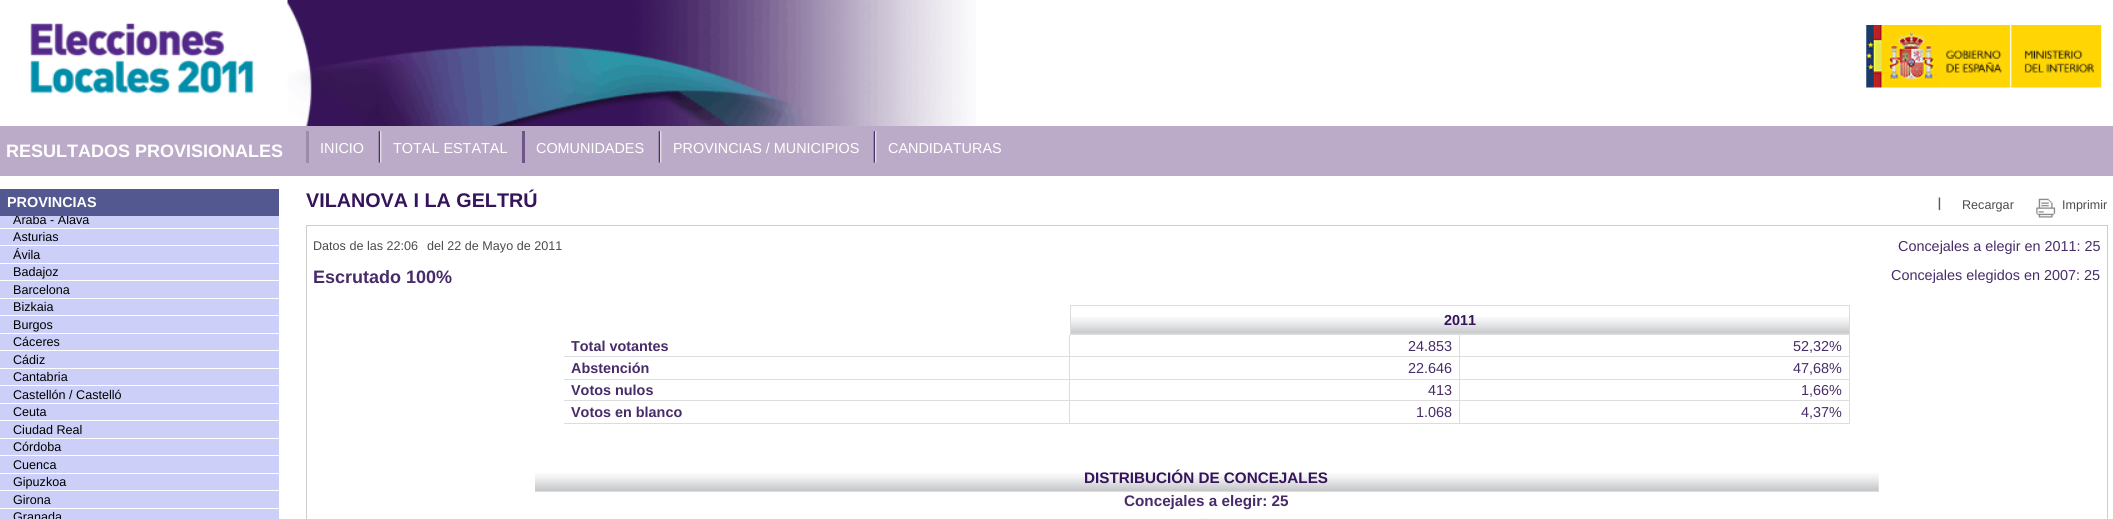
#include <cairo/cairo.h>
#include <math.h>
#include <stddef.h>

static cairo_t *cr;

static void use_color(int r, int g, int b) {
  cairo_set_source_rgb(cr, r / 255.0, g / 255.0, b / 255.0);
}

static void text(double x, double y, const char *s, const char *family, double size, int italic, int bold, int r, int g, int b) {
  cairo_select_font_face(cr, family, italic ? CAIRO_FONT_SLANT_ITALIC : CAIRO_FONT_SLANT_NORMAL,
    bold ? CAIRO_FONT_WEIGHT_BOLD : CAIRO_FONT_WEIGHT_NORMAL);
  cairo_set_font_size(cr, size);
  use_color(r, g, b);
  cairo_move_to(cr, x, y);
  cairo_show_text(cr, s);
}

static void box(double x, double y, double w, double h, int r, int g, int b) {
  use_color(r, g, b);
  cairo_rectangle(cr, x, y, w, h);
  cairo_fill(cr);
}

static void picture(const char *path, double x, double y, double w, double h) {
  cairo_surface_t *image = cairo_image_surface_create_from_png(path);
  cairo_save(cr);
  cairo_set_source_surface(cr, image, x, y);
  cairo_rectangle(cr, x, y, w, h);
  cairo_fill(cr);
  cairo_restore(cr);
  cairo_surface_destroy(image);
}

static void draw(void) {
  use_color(255, 255, 255);
  cairo_paint(cr);
  picture("img_01.png", 287, 0, 689, 126);
  picture("img_02.png", 30, 23, 224, 71);
  picture("img_03.png", 1866, 25, 236, 63);
  box(0, 126, 2113, 50, 187, 171, 200);
  box(306, 131, 3, 32, 156, 140, 172);
  picture("img_04.png", 378, 131, 4, 32);
  box(522, 131, 3, 32, 110, 86, 134);
  picture("img_04.png", 658, 131, 4, 32);
  picture("img_04.png", 873, 131, 4, 32);
  box(0, 189, 279, 27, 84, 88, 144);
  box(0, 216, 279, 12, 204, 207, 248);
  box(0, 229, 279, 16, 204, 207, 248);
  box(0, 246, 279, 17, 204, 207, 248);
  box(0, 264, 279, 16, 204, 207, 248);
  box(0, 281, 279, 17, 204, 207, 248);
  box(0, 299, 279, 16, 204, 207, 248);
  box(0, 316, 279, 17, 204, 207, 248);
  box(0, 334, 279, 16, 204, 207, 248);
  box(0, 351, 279, 17, 204, 207, 248);
  box(0, 369, 279, 16, 204, 207, 248);
  box(0, 386, 279, 17, 204, 207, 248);
  box(0, 404, 279, 16, 204, 207, 248);
  box(0, 421, 279, 17, 204, 207, 248);
  box(0, 439, 279, 16, 204, 207, 248);
  box(0, 456, 279, 17, 204, 207, 248);
  box(0, 474, 279, 16, 204, 207, 248);
  box(0, 491, 279, 17, 204, 207, 248);
  box(0, 509, 279, 10, 204, 207, 248);
  picture("img_05.png", 1938, 197, 3, 14);
  picture("img_06.png", 2036, 198, 20, 20);
  cairo_rectangle(cr, 306.5, 225.5, 1801, 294);
  use_color(205, 205, 205);
  cairo_set_line_width(cr, 1);
  cairo_stroke(cr);
  picture("img_07.png", 1071, 317, 778, 17);
  cairo_rectangle(cr, 1070.5, 305.5, 779, 29);
  use_color(219, 220, 220);
  cairo_stroke(cr);
  box(1069, 335, 1, 89, 221, 221, 221);
  box(564, 356, 506, 1, 221, 221, 221);
  box(1459, 335, 1, 89, 221, 221, 221);
  box(1070, 356, 390, 1, 221, 221, 221);
  box(1849, 335, 1, 89, 221, 221, 221);
  box(1460, 356, 390, 1, 221, 221, 221);
  box(564, 379, 1286, 1, 221, 221, 221);
  box(564, 400, 1286, 1, 221, 221, 221);
  box(564, 423, 1286, 1, 221, 221, 221);
  picture("img_08.png", 535, 473, 1344, 18);
  box(535, 491, 1344, 1, 219, 220, 220);
  picture("img_09.png", 1201, 518, 9, 1);
  text(6, 157, "RESULTADOS PROVISIONALES", "Liberation Sans", 18, 0, 1, 255, 255, 255);
  text(320, 153, "INICIO", "Liberation Sans", 14.4, 0, 0, 255, 255, 255);
  text(393, 153, "TOTAL ESTATAL", "Liberation Sans", 14.4, 0, 0, 255, 255, 255);
  text(536, 153, "COMUNIDADES", "Liberation Sans", 14.4, 0, 0, 255, 255, 255);
  text(673, 153, "PROVINCIAS / MUNICIPIOS", "Liberation Sans", 14.4, 0, 0, 255, 255, 255);
  text(888, 153, "CANDIDATURAS", "Liberation Sans", 14.4, 0, 0, 255, 255, 255);
  text(7, 207, "PROVINCIAS", "Liberation Sans", 14.4, 0, 1, 255, 255, 255);
  cairo_save(cr);
  cairo_rectangle(cr, 0, 216, 279, 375);
  cairo_clip(cr);
  text(13, 224, "Araba - Álava", "Liberation Sans", 12.6, 0, 0, 0, 0, 0);
  cairo_restore(cr);
  text(13, 241, "Asturias", "Liberation Sans", 12.6, 0, 0, 0, 0, 0);
  text(13, 259, "Ávila", "Liberation Sans", 12.6, 0, 0, 0, 0, 0);
  text(13, 276, "Badajoz", "Liberation Sans", 12.6, 0, 0, 0, 0, 0);
  text(13, 294, "Barcelona", "Liberation Sans", 12.6, 0, 0, 0, 0, 0);
  text(13, 311, "Bizkaia", "Liberation Sans", 12.6, 0, 0, 0, 0, 0);
  text(13, 329, "Burgos", "Liberation Sans", 12.6, 0, 0, 0, 0, 0);
  text(13, 346, "Cáceres", "Liberation Sans", 12.6, 0, 0, 0, 0, 0);
  text(13, 364, "Cádiz", "Liberation Sans", 12.6, 0, 0, 0, 0, 0);
  text(13, 381, "Cantabria", "Liberation Sans", 12.6, 0, 0, 0, 0, 0);
  text(13, 399, "Castellón / Castelló", "Liberation Sans", 12.6, 0, 0, 0, 0, 0);
  text(13, 416, "Ceuta", "Liberation Sans", 12.6, 0, 0, 0, 0, 0);
  text(13, 434, "Ciudad Real", "Liberation Sans", 12.6, 0, 0, 0, 0, 0);
  text(13, 451, "Córdoba", "Liberation Sans", 12.6, 0, 0, 0, 0, 0);
  text(13, 469, "Cuenca", "Liberation Sans", 12.6, 0, 0, 0, 0, 0);
  text(13, 486, "Gipuzkoa", "Liberation Sans", 12.6, 0, 0, 0, 0, 0);
  text(13, 504, "Girona", "Liberation Sans", 12.6, 0, 0, 0, 0, 0);
  text(13, 521, "Granada", "Liberation Sans", 12.6, 0, 0, 0, 0, 0);
  text(306, 207, "VILANOVA I LA GELTRÚ", "Liberation Sans", 19.75, 0, 1, 53, 20, 91);
  text(1962, 209, "Recargar", "Liberation Sans", 12.6, 0, 0, 75, 75, 75);
  text(2062, 209, "Imprimir", "Liberation Sans", 12.5, 0, 0, 75, 75, 75);
  text(313, 250, "Datos de las 22:06", "Liberation Sans", 12.6, 0, 0, 75, 75, 75);
  text(427, 250, "del 22 de Mayo de 2011", "Liberation Sans", 12.6, 0, 0, 75, 75, 75);
  text(313, 283, "Escrutado 100%", "Liberation Sans", 18, 0, 1, 72, 44, 105);
  text(1898, 251, "Concejales a elegir en 2011: 25", "Liberation Sans", 14.4, 0, 0, 72, 44, 105);
  text(1891, 280, "Concejales elegidos en 2007: 25", "Liberation Sans", 14.4, 0, 0, 72, 44, 105);
  text(1444, 325, "2011", "Liberation Sans", 14.4, 0, 1, 53, 20, 91);
  text(571, 351, "Total votantes", "Liberation Sans", 14.4, 0, 1, 72, 44, 105);
  text(1408, 351, "24.853", "Liberation Sans", 14.4, 0, 0, 72, 44, 105);
  text(1793, 351, "52,32%", "Liberation Sans", 14.4, 0, 0, 72, 44, 105);
  text(571, 373, "Abstención", "Liberation Sans", 14.4, 0, 1, 72, 44, 105);
  text(1408, 373, "22.646", "Liberation Sans", 14.4, 0, 0, 72, 44, 105);
  text(1793, 373, "47,68%", "Liberation Sans", 14.4, 0, 0, 72, 44, 105);
  text(571, 395, "Votos nulos", "Liberation Sans", 14.4, 0, 1, 72, 44, 105);
  text(1428, 395, "413", "Liberation Sans", 14.4, 0, 0, 72, 44, 105);
  text(1801, 395, "1,66%", "Liberation Sans", 14.4, 0, 0, 72, 44, 105);
  text(571, 417, "Votos en blanco", "Liberation Sans", 14.4, 0, 1, 72, 44, 105);
  text(1416, 417, "1.068", "Liberation Sans", 14.4, 0, 0, 72, 44, 105);
  text(1801, 417, "4,37%", "Liberation Sans", 14.4, 0, 0, 72, 44, 105);
  text(1084, 483, "DISTRIBUCIÓN DE CONCEJALES", "Liberation Sans", 15.25, 0, 1, 53, 20, 91);
  text(1124, 506, "Concejales a elegir: 25", "Liberation Sans", 15.25, 0, 1, 72, 44, 105);
}

int main(void) {
  cairo_surface_t *surface = cairo_image_surface_create(CAIRO_FORMAT_RGB24, 2113, 519);
  cr = cairo_create(surface);
  cairo_font_options_t *options = cairo_font_options_create();
  cairo_font_options_set_hint_metrics(options, CAIRO_HINT_METRICS_OFF);
  cairo_font_options_set_hint_style(options, CAIRO_HINT_STYLE_NONE);
  cairo_set_font_options(cr, options);
  cairo_set_miter_limit(cr, 4);
  draw();
  cairo_surface_write_to_png(surface, "out.png");
  cairo_font_options_destroy(options);
  cairo_destroy(cr);
  cairo_surface_destroy(surface);
  return 0;
}
